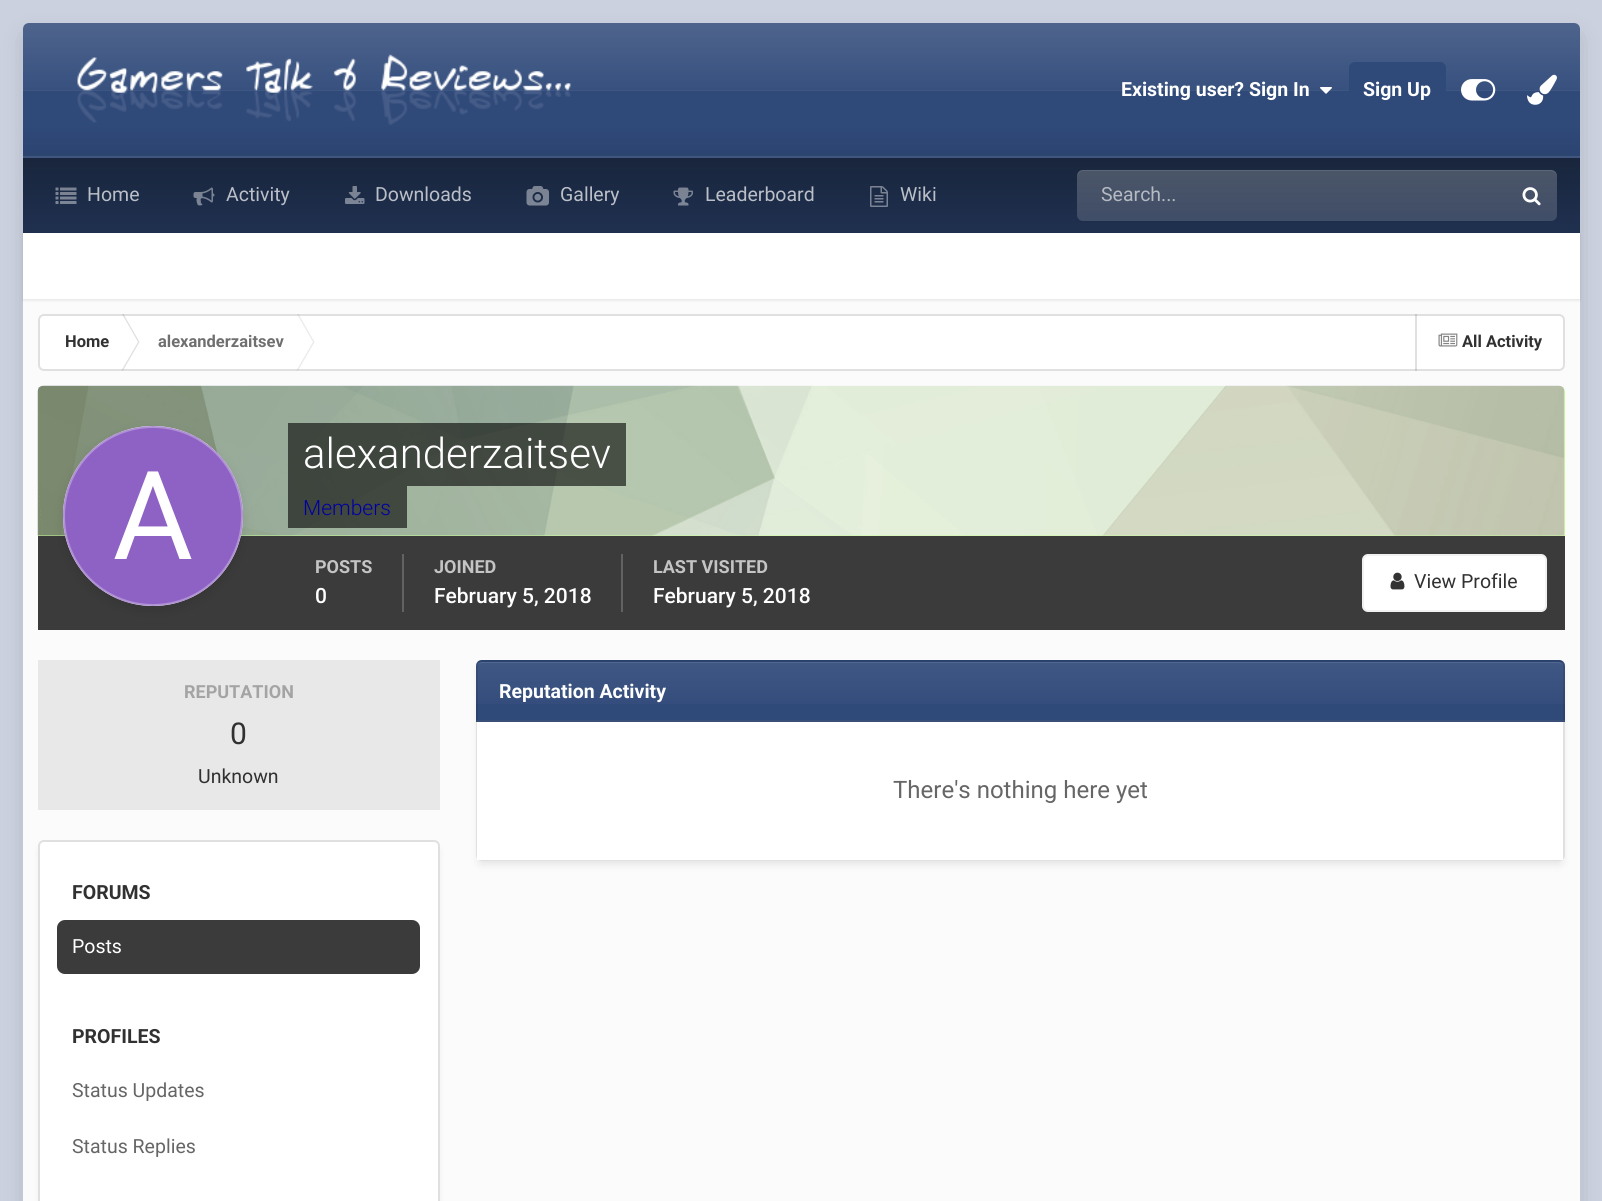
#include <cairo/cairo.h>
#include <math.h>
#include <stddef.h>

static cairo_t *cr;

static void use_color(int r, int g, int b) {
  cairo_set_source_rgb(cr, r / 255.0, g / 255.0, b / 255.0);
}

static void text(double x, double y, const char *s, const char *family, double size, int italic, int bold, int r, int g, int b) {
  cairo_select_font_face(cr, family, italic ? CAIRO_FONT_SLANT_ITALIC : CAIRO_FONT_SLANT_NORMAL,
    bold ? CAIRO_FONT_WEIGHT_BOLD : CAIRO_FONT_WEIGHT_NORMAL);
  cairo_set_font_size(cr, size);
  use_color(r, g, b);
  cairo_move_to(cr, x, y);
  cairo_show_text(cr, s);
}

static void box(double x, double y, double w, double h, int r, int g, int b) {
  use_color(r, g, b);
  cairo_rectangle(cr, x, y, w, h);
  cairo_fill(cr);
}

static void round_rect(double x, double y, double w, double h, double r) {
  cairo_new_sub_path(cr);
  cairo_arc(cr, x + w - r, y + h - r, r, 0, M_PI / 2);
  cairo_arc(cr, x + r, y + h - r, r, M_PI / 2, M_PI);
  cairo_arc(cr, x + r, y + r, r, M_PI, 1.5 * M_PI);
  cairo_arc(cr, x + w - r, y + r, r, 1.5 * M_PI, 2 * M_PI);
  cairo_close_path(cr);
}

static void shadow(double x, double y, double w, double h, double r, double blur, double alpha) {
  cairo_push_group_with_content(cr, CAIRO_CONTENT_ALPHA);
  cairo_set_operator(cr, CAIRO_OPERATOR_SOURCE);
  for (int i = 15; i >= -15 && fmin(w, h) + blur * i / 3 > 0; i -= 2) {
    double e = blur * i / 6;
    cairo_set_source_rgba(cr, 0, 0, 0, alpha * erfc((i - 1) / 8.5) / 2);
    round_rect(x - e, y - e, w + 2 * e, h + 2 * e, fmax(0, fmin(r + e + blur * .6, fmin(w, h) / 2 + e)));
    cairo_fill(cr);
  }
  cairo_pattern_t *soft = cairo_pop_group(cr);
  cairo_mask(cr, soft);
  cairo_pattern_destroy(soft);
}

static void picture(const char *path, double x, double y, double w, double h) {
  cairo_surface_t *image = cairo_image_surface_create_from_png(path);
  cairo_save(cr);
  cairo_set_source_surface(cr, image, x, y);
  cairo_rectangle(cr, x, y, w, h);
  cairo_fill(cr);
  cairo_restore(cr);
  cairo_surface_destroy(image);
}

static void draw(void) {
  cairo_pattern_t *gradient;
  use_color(203, 209, 222);
  cairo_paint(cr);
  cairo_save(cr);
  cairo_set_fill_rule(cr, CAIRO_FILL_RULE_EVEN_ODD);
  cairo_new_path(cr);
  cairo_move_to(cr, 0, 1);
  cairo_line_to(cr, 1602, 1);
  cairo_line_to(cr, 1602, 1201);
  cairo_line_to(cr, 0, 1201);
  cairo_close_path(cr);
  cairo_move_to(cr, 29, 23);
  cairo_line_to(cr, 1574, 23);
  cairo_curve_to(cr, 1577.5, 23, 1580, 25.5, 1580, 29);
  cairo_line_to(cr, 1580, 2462);
  cairo_curve_to(cr, 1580, 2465.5, 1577.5, 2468, 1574, 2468);
  cairo_line_to(cr, 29, 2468);
  cairo_curve_to(cr, 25.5, 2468, 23, 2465.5, 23, 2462);
  cairo_line_to(cr, 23, 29);
  cairo_curve_to(cr, 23, 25.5, 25.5, 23, 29, 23);
  cairo_close_path(cr);
  cairo_clip(cr);
  use_color(0, 0, 0);
  shadow(29, 38, 1545, 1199, 0, 12, 0.2);
  cairo_restore(cr);
  cairo_set_source_rgba(cr, 1, 1, 1, 0.92);
  round_rect(23, 23, 1557, 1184, 6);
  cairo_fill(cr);
  use_color(47, 73, 121);
  cairo_new_path(cr);
  cairo_move_to(cr, 29, 23);
  cairo_line_to(cr, 1574, 23);
  cairo_curve_to(cr, 1577.5, 23, 1580, 25.5, 1580, 29);
  cairo_line_to(cr, 1580, 158);
  cairo_line_to(cr, 23, 158);
  cairo_line_to(cr, 23, 29);
  cairo_curve_to(cr, 23, 25.5, 25.5, 23, 29, 23);
  cairo_close_path(cr);
  cairo_fill(cr);
  gradient = cairo_pattern_create_linear(801, 22, 801, 158);
  cairo_pattern_add_color_stop_rgba(gradient, 0, 1, 1, 1, 0.15);
  cairo_pattern_add_color_stop_rgba(gradient, 0.5, 1, 1, 1, 0.04);
  cairo_pattern_add_color_stop_rgba(gradient, 0.5, 1, 1, 1, 0.07);
  cairo_pattern_add_color_stop_rgba(gradient, 0.51, 1, 1, 1, 0.07);
  cairo_pattern_add_color_stop_rgba(gradient, 0.51, 1, 1, 1, 0);
  cairo_pattern_add_color_stop_rgba(gradient, 0.75, 0, 0, 0, 0);
  cairo_pattern_add_color_stop_rgba(gradient, 1, 0, 0, 0, 0.08);
  cairo_set_source(cr, gradient);
  cairo_pattern_destroy(gradient);
  cairo_new_path(cr);
  cairo_move_to(cr, 29, 23);
  cairo_line_to(cr, 1574, 23);
  cairo_curve_to(cr, 1577.5, 23, 1580, 25.5, 1580, 29);
  cairo_line_to(cr, 1580, 158);
  cairo_line_to(cr, 23, 158);
  cairo_line_to(cr, 23, 29);
  cairo_curve_to(cr, 23, 25.5, 25.5, 23, 29, 23);
  cairo_close_path(cr);
  cairo_fill(cr);
  box(23, 156, 1557, 2, 64, 86, 126);
  picture("img_01.png", 77, 54, 494, 71);
  picture("img_02.png", 1320, 87, 12, 7);
  use_color(47, 73, 121);
  round_rect(1349, 62, 97, 57, 6);
  cairo_fill(cr);
  picture("img_03.png", 1461, 79, 35, 22);
  picture("img_04.png", 1527, 74, 30, 31);
  gradient = cairo_pattern_create_linear(801, 157, 801, 299);
  cairo_pattern_add_color_stop_rgba(gradient, 0, 0.094, 0.145, 0.235, 1);
  cairo_pattern_add_color_stop_rgba(gradient, 1, 0.149, 0.227, 0.38, 1);
  cairo_set_source(cr, gradient);
  cairo_pattern_destroy(gradient);
  cairo_rectangle(cr, 23, 158, 1557, 75);
  cairo_fill(cr);
  picture("img_05.png", 55, 187, 22, 17);
  picture("img_06.png", 193, 187, 22, 19);
  picture("img_07.png", 345, 186, 20, 18);
  picture("img_08.png", 526, 186, 23, 20);
  picture("img_09.png", 673, 187, 20, 19);
  picture("img_10.png", 870, 186, 18, 21);
  cairo_set_source_rgba(cr, 1, 1, 1, 0.15);
  round_rect(1077, 170, 480, 51, 6);
  cairo_fill(cr);
  gradient = cairo_pattern_create_linear(1317, 169, 1317, 221);
  cairo_pattern_add_color_stop_rgba(gradient, 0, 1, 1, 1, 0.08);
  cairo_pattern_add_color_stop_rgba(gradient, 1, 1, 1, 1, 0);
  cairo_set_source(cr, gradient);
  cairo_pattern_destroy(gradient);
  round_rect(1077, 170, 480, 51, 6);
  cairo_fill(cr);
  cairo_set_source_rgba(cr, 1, 1, 1, 0.1);
  cairo_new_path(cr);
  cairo_move_to(cr, 1083, 171);
  cairo_line_to(cr, 1551, 171);
  cairo_curve_to(cr, 1554, 171, 1557, 174, 1557, 177);
  cairo_curve_to(cr, 1557, 173, 1555, 170, 1551, 170);
  cairo_line_to(cr, 1083, 170);
  cairo_curve_to(cr, 1079, 170, 1077, 173, 1077, 177);
  cairo_curve_to(cr, 1077, 174, 1080, 171, 1083, 171);
  cairo_close_path(cr);
  cairo_fill(cr);
  picture("img_11.png", 1522, 187, 19, 19);
  use_color(0, 0, 0);
  shadow(23, 234, 1557, 66, 0, 1.5, 0.1);
  box(23, 233, 1557, 66, 255, 255, 255);
  round_rect(38, 314, 1527, 57, 6);
  cairo_fill(cr);
  use_color(224, 224, 224);
  cairo_new_path(cr);
  cairo_move_to(cr, 123.5, 314);
  cairo_line_to(cr, 122, 314);
  cairo_line_to(cr, 138, 342);
  cairo_line_to(cr, 139.5, 342);
  cairo_close_path(cr);
  cairo_move_to(cr, 121.5, 370.5);
  cairo_line_to(cr, 123, 370.5);
  cairo_line_to(cr, 139.5, 342);
  cairo_line_to(cr, 138, 342);
  cairo_close_path(cr);
  cairo_fill(cr);
  use_color(234, 234, 234);
  cairo_new_path(cr);
  cairo_move_to(cr, 298.5, 314);
  cairo_line_to(cr, 297, 314);
  cairo_line_to(cr, 313, 342);
  cairo_line_to(cr, 314.5, 342);
  cairo_close_path(cr);
  cairo_move_to(cr, 296.5, 370.5);
  cairo_line_to(cr, 298, 370.5);
  cairo_line_to(cr, 314.5, 342);
  cairo_line_to(cr, 313, 342);
  cairo_close_path(cr);
  cairo_fill(cr);
  box(1415, 314, 2, 57, 224, 224, 224);
  picture("img_12.png", 1438, 333, 20, 14);
  round_rect(39, 315, 1525, 55, 5);
  cairo_set_source_rgba(cr, 0.4, 0.4, 0.4, 0.2);
  cairo_stroke(cr);
  use_color(201, 255, 153);
  cairo_new_path(cr);
  cairo_move_to(cr, 44, 386);
  cairo_line_to(cr, 1559, 386);
  cairo_curve_to(cr, 1562.5, 386, 1565, 388.5, 1565, 392);
  cairo_line_to(cr, 1565, 536);
  cairo_line_to(cr, 38, 536);
  cairo_line_to(cr, 38, 392);
  cairo_curve_to(cr, 38, 388.5, 40.5, 386, 44, 386);
  cairo_close_path(cr);
  cairo_fill(cr);
  picture("img_13.png", 37, 385, 1528, 151);
  box(38, 536, 1527, 94, 59, 59, 59);
  use_color(255, 255, 255);
  cairo_arc(cr, 153, 516, 90, 0, 2 * M_PI);
  cairo_fill(cr);
  picture("img_14.png", 63, 426, 180, 180);
  cairo_save(cr);
  cairo_set_fill_rule(cr, CAIRO_FILL_RULE_EVEN_ODD);
  cairo_new_path(cr);
  cairo_move_to(cr, 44, 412);
  cairo_line_to(cr, 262, 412);
  cairo_line_to(cr, 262, 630);
  cairo_line_to(cr, 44, 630);
  cairo_close_path(cr);
  cairo_move_to(cr, 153, 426);
  cairo_curve_to(cr, 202.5, 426, 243, 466.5, 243, 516);
  cairo_curve_to(cr, 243, 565.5, 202.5, 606, 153, 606);
  cairo_curve_to(cr, 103.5, 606, 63, 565.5, 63, 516);
  cairo_curve_to(cr, 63, 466.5, 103.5, 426, 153, 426);
  cairo_close_path(cr);
  cairo_clip(cr);
  use_color(0, 0, 0);
  shadow(63, 431, 180, 180, 90, 6, 0.1);
  cairo_restore(cr);
  cairo_arc(cr, 153, 516, 89, 0, 2 * M_PI);
  cairo_set_source_rgba(cr, 1, 1, 1, 0.3);
  cairo_stroke(cr);
  cairo_set_source_rgba(cr, 0, 0, 0, 0.6);
  cairo_rectangle(cr, 288, 423, 338, 63);
  cairo_fill(cr);
  cairo_rectangle(cr, 288, 486, 119, 42);
  cairo_fill(cr);
  box(402, 554, 2, 58, 98, 98, 98);
  box(621, 554, 2, 58, 98, 98, 98);
  use_color(255, 255, 255);
  round_rect(1362, 554, 185, 58, 6);
  cairo_fill(cr);
  round_rect(1363, 555, 183, 56, 5);
  cairo_set_source_rgba(cr, 0.2, 0.2, 0.2, 0.07);
  cairo_stroke(cr);
  picture("img_15.png", 1390, 572, 15, 18);
  box(38, 660, 402, 150, 232, 232, 232);
  use_color(0, 0, 0);
  shadow(41, 849, 396, 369, 3, 4.5, 0.1);
  use_color(255, 255, 255);
  round_rect(39, 841, 400, 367, 5);
  cairo_fill_preserve(cr);
  use_color(224, 224, 224);
  cairo_stroke(cr);
  use_color(59, 59, 59);
  round_rect(57, 920, 363, 54, 8);
  cairo_fill(cr);
  use_color(0, 0, 0);
  shadow(479, 669, 1083, 195, 3, 4.5, 0.1);
  round_rect(477, 661, 1087, 199, 5);
  use_color(224, 224, 224);
  cairo_stroke(cr);
  use_color(47, 73, 121);
  cairo_new_path(cr);
  cairo_move_to(cr, 482, 660);
  cairo_line_to(cr, 1559, 660);
  cairo_curve_to(cr, 1562.5, 660, 1565, 662.5, 1565, 666);
  cairo_line_to(cr, 1565, 722);
  cairo_line_to(cr, 476, 722);
  cairo_line_to(cr, 476, 666);
  cairo_curve_to(cr, 476, 662.5, 478.5, 660, 482, 660);
  cairo_close_path(cr);
  cairo_fill(cr);
  gradient = cairo_pattern_create_linear(1020, 661, 1020, 720);
  cairo_pattern_add_color_stop_rgba(gradient, 0, 1, 1, 1, 0.08);
  cairo_pattern_add_color_stop_rgba(gradient, 1, 1, 1, 1, 0);
  cairo_set_source(cr, gradient);
  cairo_pattern_destroy(gradient);
  cairo_rectangle(cr, 476, 662, 1089, 42);
  cairo_fill(cr);
  gradient = cairo_pattern_create_linear(1020, 720, 1020, 779);
  cairo_pattern_add_color_stop_rgba(gradient, 0, 0.251, 0.345, 0.518, 1);
  cairo_pattern_add_color_stop_rgba(gradient, 1, 0.184, 0.286, 0.475, 1);
  cairo_set_source(cr, gradient);
  cairo_pattern_destroy(gradient);
  cairo_rectangle(cr, 476, 720, 1089, 2);
  cairo_fill(cr);
  use_color(82, 104, 144);
  cairo_new_path(cr);
  cairo_move_to(cr, 482, 663);
  cairo_line_to(cr, 1558, 663);
  cairo_curve_to(cr, 1561, 663, 1563, 665, 1563, 668);
  cairo_curve_to(cr, 1563, 665, 1561, 662, 1558, 662);
  cairo_line_to(cr, 482, 662);
  cairo_curve_to(cr, 479, 662, 477, 665, 477, 668);
  cairo_curve_to(cr, 477, 665, 479, 663, 482, 663);
  cairo_close_path(cr);
  cairo_fill(cr);
  cairo_new_path(cr);
  cairo_move_to(cr, 482, 661);
  cairo_line_to(cr, 1559, 661);
  cairo_curve_to(cr, 1562, 661, 1564, 663, 1564, 666);
  cairo_line_to(cr, 1564, 721);
  cairo_line_to(cr, 477, 721);
  cairo_line_to(cr, 477, 666);
  cairo_curve_to(cr, 477, 663, 479, 661, 482, 661);
  cairo_close_path(cr);
  cairo_set_source_rgba(cr, 0, 0, 0, 0.1);
  cairo_stroke(cr);
  box(477, 722, 1086, 138, 255, 255, 255);
  text(1121, 96, "Existing user? Sign In", "Roboto", 19.5, 0, 1, 255, 255, 255);
  text(1363, 96, "Sign Up", "Roboto", 19.5, 0, 1, 255, 255, 255);
  text(87, 201, "Home", "Roboto", 19.5, 0, 0, 187, 191, 199);
  text(226, 201, "Activity", "Roboto", 19.5, 0, 0, 187, 191, 199);
  text(375, 201, "Downloads", "Roboto", 19.5, 0, 0, 187, 191, 199);
  text(560, 201, "Gallery", "Roboto", 19.5, 0, 0, 187, 191, 199);
  text(705, 201, "Leaderboard", "Roboto", 19.5, 0, 0, 187, 191, 199);
  text(900, 201, "Wiki", "Roboto", 19.5, 0, 0, 187, 191, 199);
  text(1101, 201, "Search...", "Roboto", 19.5, 0, 0, 181, 186, 195);
  text(65, 347, "Home", "Roboto", 16.5, 0, 1, 49, 49, 49);
  text(158, 347, "alexanderzaitsev", "Roboto", 16.5, 0, 1, 111, 111, 111);
  text(1462, 347, "All Activity", "Roboto", 16.5, 0, 1, 49, 49, 49);
  text(303, 468, "alexanderzaitsev", "Roboto Light", 42, 0, 0, 255, 255, 255);
  text(303, 515, "Members", "Roboto Light", 21, 0, 0, 0, 0, 160);
  text(315, 573, "POSTS", "Roboto", 18, 0, 1, 196, 196, 196);
  text(315, 603, "0", "Roboto Medium", 21, 0, 0, 255, 255, 255);
  text(434, 573, "JOINED", "Roboto", 18, 0, 1, 196, 196, 196);
  text(434, 603, "February 5, 2018", "Roboto Medium", 21, 0, 0, 255, 255, 255);
  text(653, 573, "LAST VISITED", "Roboto", 18, 0, 1, 196, 196, 196);
  text(653, 603, "February 5, 2018", "Roboto Medium", 21, 0, 0, 255, 255, 255);
  text(1414, 588, "View Profile", "Roboto", 19.5, 0, 0, 49, 49, 49);
  text(184, 698, "REPUTATION", "Roboto", 18, 0, 1, 164, 164, 164);
  text(230, 744, "0", "Roboto", 30, 0, 0, 49, 49, 49);
  text(198, 783, "Unknown", "Roboto", 19.5, 0, 0, 49, 49, 49);
  text(72, 899, "FORUMS", "Roboto", 19.5, 0, 1, 49, 49, 49);
  text(72, 953, "Posts", "Roboto", 19.5, 0, 0, 255, 255, 255);
  text(72, 1043, "PROFILES", "Roboto", 19.5, 0, 1, 49, 49, 49);
  text(72, 1097, "Status Updates", "Roboto", 19.5, 0, 0, 102, 102, 102);
  text(72, 1153, "Status Replies", "Roboto", 19.5, 0, 0, 102, 102, 102);
  text(499, 698, "Reputation Activity", "Roboto", 19.5, 0, 1, 255, 255, 255);
  text(893, 798, "There's nothing here yet", "Roboto", 24, 0, 0, 102, 102, 102);
}

int main(void) {
  cairo_surface_t *surface = cairo_image_surface_create(CAIRO_FORMAT_RGB24, 1602, 1201);
  cr = cairo_create(surface);
  cairo_font_options_t *options = cairo_font_options_create();
  cairo_font_options_set_hint_metrics(options, CAIRO_HINT_METRICS_OFF);
  cairo_font_options_set_hint_style(options, CAIRO_HINT_STYLE_NONE);
  cairo_set_font_options(cr, options);
  cairo_set_miter_limit(cr, 4);
  draw();
  cairo_surface_write_to_png(surface, "out.png");
  cairo_font_options_destroy(options);
  cairo_destroy(cr);
  cairo_surface_destroy(surface);
  return 0;
}
